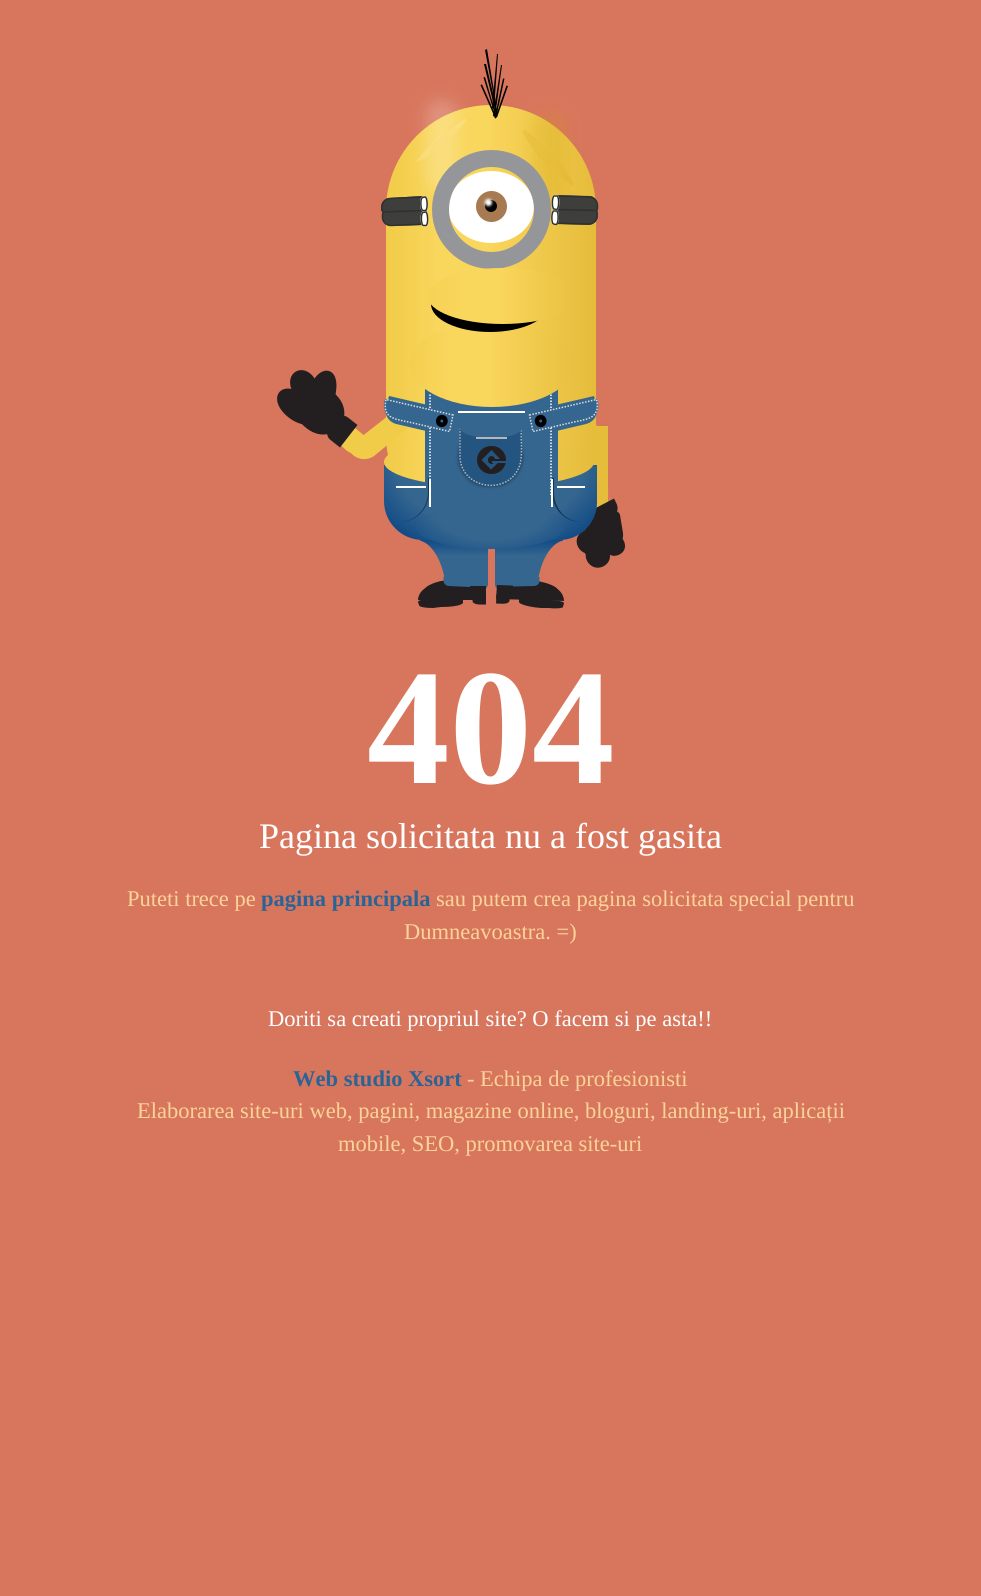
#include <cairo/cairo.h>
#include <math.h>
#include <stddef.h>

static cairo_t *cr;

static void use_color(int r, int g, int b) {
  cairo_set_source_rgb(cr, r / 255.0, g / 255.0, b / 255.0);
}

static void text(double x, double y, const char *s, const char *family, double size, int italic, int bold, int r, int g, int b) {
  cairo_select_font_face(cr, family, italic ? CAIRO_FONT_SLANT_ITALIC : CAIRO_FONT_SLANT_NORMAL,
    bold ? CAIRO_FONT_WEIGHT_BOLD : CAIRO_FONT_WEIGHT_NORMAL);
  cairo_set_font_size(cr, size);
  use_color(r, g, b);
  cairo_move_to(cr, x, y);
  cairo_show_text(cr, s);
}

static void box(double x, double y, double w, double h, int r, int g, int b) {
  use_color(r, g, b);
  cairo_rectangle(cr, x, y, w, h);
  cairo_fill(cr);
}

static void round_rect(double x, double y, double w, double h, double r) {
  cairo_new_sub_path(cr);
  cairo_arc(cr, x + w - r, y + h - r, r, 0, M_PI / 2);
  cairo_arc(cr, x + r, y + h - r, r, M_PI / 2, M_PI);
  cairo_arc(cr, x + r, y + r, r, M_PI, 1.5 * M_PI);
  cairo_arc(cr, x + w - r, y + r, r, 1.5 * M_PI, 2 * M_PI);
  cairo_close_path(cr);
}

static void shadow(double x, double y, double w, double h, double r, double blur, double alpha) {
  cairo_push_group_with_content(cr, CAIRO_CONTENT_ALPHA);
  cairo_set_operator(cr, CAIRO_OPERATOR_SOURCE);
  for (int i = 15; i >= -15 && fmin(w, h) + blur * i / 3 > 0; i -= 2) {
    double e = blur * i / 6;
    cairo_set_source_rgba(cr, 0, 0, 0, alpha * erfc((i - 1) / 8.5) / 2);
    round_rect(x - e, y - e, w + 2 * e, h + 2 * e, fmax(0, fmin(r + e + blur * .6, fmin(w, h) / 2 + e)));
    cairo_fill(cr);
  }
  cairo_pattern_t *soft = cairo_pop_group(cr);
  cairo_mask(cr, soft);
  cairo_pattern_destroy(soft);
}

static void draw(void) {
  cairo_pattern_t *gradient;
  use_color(216, 118, 93);
  cairo_paint(cr);
  gradient = cairo_pattern_create_linear(708, 390, 581, 516);
  cairo_pattern_add_color_stop_rgba(gradient, 0, 0.945, 0.796, 0.282, 1);
  cairo_pattern_add_color_stop_rgba(gradient, 0.24, 0.976, 0.839, 0.361, 1);
  cairo_pattern_add_color_stop_rgba(gradient, 0.99, 0.902, 0.737, 0.231, 1);
  cairo_set_source(cr, gradient);
  cairo_pattern_destroy(gradient);
  cairo_new_path(cr);
  cairo_move_to(cr, 587, 412);
  cairo_line_to(cr, 587, 522);
  cairo_curve_to(cr, 611, 522, 608, 505, 608, 486);
  cairo_line_to(cr, 607, 459);
  cairo_curve_to(cr, 606, 442, 598, 425, 587, 412);
  cairo_close_path(cr);
  cairo_fill(cr);
  box(593, 426, 15, 82, 230, 188, 59);
  gradient = cairo_pattern_create_linear(386, 323, 596, 323);
  cairo_pattern_add_color_stop_rgba(gradient, 0, 0.945, 0.796, 0.282, 1);
  cairo_pattern_add_color_stop_rgba(gradient, 0.24, 0.976, 0.839, 0.361, 1);
  cairo_pattern_add_color_stop_rgba(gradient, 0.48, 0.976, 0.839, 0.361, 1);
  cairo_pattern_add_color_stop_rgba(gradient, 0.99, 0.902, 0.737, 0.231, 1);
  cairo_set_source(cr, gradient);
  cairo_pattern_destroy(gradient);
  round_rect(386, 105, 210, 435, 105);
  cairo_fill(cr);
  use_color(0, 0, 0);
  cairo_new_path(cr);
  cairo_move_to(cr, 501, 65);
  cairo_line_to(cr, 502, 65);
  cairo_line_to(cr, 495, 117);
  cairo_line_to(cr, 493, 116);
  cairo_close_path(cr);
  cairo_fill(cr);
  cairo_save(cr);
  cairo_set_fill_rule(cr, CAIRO_FILL_RULE_EVEN_ODD);
  cairo_new_path(cr);
  cairo_move_to(cr, 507, 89);
  cairo_line_to(cr, 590, 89);
  cairo_line_to(cr, 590, 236);
  cairo_line_to(cr, 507, 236);
  cairo_close_path(cr);
  cairo_move_to(cr, 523, 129.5);
  cairo_curve_to(cr, 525.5, 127.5, 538.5, 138.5, 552, 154);
  cairo_curve_to(cr, 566, 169.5, 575.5, 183.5, 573.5, 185.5);
  cairo_curve_to(cr, 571, 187.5, 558, 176.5, 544.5, 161);
  cairo_curve_to(cr, 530.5, 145.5, 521, 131.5, 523, 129.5);
  cairo_close_path(cr);
  cairo_clip(cr);
  use_color(205, 159, 8);
  shadow(531, 113, 35, 99, 17.5, 7.5, 0.2);
  cairo_restore(cr);
  cairo_new_path(cr);
  cairo_move_to(cr, 506.5, 85.5);
  cairo_line_to(cr, 508, 86);
  cairo_line_to(cr, 497, 117.5);
  cairo_line_to(cr, 495.5, 117);
  cairo_close_path(cr);
  cairo_fill(cr);
  cairo_new_path(cr);
  cairo_move_to(cr, 503, 78.5);
  cairo_line_to(cr, 504.5, 78.5);
  cairo_line_to(cr, 496, 118.5);
  cairo_line_to(cr, 494.5, 118);
  cairo_close_path(cr);
  cairo_fill(cr);
  cairo_new_path(cr);
  cairo_move_to(cr, 486, 64);
  cairo_line_to(cr, 484, 64);
  cairo_line_to(cr, 496, 114);
  cairo_line_to(cr, 498, 114);
  cairo_close_path(cr);
  cairo_fill(cr);
  cairo_save(cr);
  cairo_set_fill_rule(cr, CAIRO_FILL_RULE_EVEN_ODD);
  cairo_new_path(cr);
  cairo_move_to(cr, 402, 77);
  cairo_line_to(cr, 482, 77);
  cairo_line_to(cr, 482, 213);
  cairo_line_to(cr, 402, 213);
  cairo_close_path(cr);
  cairo_move_to(cr, 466, 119);
  cairo_curve_to(cr, 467.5, 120.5, 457.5, 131.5, 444, 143);
  cairo_curve_to(cr, 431, 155, 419, 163, 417.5, 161.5);
  cairo_curve_to(cr, 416, 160, 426, 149, 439.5, 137.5);
  cairo_curve_to(cr, 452.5, 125.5, 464.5, 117.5, 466, 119);
  cairo_close_path(cr);
  cairo_clip(cr);
  use_color(255, 255, 255);
  shadow(426, 101, 32, 88, 16, 7.5, 0.2);
  cairo_restore(cr);
  cairo_new_path(cr);
  cairo_move_to(cr, 482, 84.5);
  cairo_line_to(cr, 480.5, 85);
  cairo_line_to(cr, 494, 115.5);
  cairo_line_to(cr, 495.5, 115);
  cairo_close_path(cr);
  cairo_fill(cr);
  cairo_new_path(cr);
  cairo_move_to(cr, 485, 77);
  cairo_line_to(cr, 483.5, 77.5);
  cairo_line_to(cr, 495.5, 116.5);
  cairo_line_to(cr, 496.5, 116);
  cairo_close_path(cr);
  cairo_fill(cr);
  cairo_new_path(cr);
  cairo_move_to(cr, 497, 54);
  cairo_line_to(cr, 498, 54);
  cairo_line_to(cr, 494, 109);
  cairo_line_to(cr, 492, 108);
  cairo_close_path(cr);
  cairo_fill(cr);
  cairo_new_path(cr);
  cairo_move_to(cr, 487, 49);
  cairo_line_to(cr, 485, 50);
  cairo_line_to(cr, 495, 103);
  cairo_line_to(cr, 496, 103);
  cairo_close_path(cr);
  cairo_fill(cr);
  cairo_set_source_rgba(cr, 1, 1, 1, 0.2);
  cairo_new_path(cr);
  cairo_move_to(cr, 466, 119);
  cairo_curve_to(cr, 467, 121, 458, 131, 444, 143);
  cairo_curve_to(cr, 431, 155, 419, 163, 417, 161);
  cairo_curve_to(cr, 416, 160, 426, 149, 439, 137);
  cairo_curve_to(cr, 453, 126, 465, 118, 466, 119);
  cairo_close_path(cr);
  cairo_fill(cr);
  cairo_set_source_rgba(cr, 0.804, 0.624, 0.031, 0.2);
  cairo_new_path(cr);
  cairo_move_to(cr, 523, 130);
  cairo_curve_to(cr, 525, 128, 538, 139, 552, 154);
  cairo_curve_to(cr, 566, 169, 575, 183, 573, 185);
  cairo_curve_to(cr, 571, 187, 558, 176, 544, 161);
  cairo_curve_to(cr, 530, 146, 521, 132, 523, 130);
  cairo_close_path(cr);
  cairo_fill(cr);
  use_color(255, 255, 255);
  cairo_new_path(cr);
  cairo_move_to(cr, 491, 171);
  cairo_curve_to(cr, 514.5, 171, 534, 187, 534, 207);
  cairo_curve_to(cr, 534, 227, 514.5, 243, 491, 243);
  cairo_curve_to(cr, 467.5, 243, 448, 227, 448, 207);
  cairo_curve_to(cr, 448, 187, 467.5, 171, 491, 171);
  cairo_close_path(cr);
  cairo_fill(cr);
  use_color(168, 122, 81);
  cairo_arc(cr, 491.5, 206.5, 15.5, 0, 2 * M_PI);
  cairo_fill(cr);
  use_color(0, 0, 0);
  cairo_arc(cr, 491, 206, 6, 0, 2 * M_PI);
  cairo_fill(cr);
  use_color(255, 255, 255);
  shadow(486, 200, 5, 5, 2.5, 1.5, 1);
  shadow(486, 200, 5, 5, 2.5, 1.5, 1);
  cairo_arc(cr, 491.5, 209.5, 51, 0, 2 * M_PI);
  use_color(148, 150, 153);
  cairo_set_line_width(cr, 17);
  cairo_stroke(cr);
  use_color(62, 62, 60);
  cairo_new_path(cr);
  cairo_move_to(cr, 421, 196);
  cairo_line_to(cr, 390, 198);
  cairo_curve_to(cr, 385, 198, 381, 202, 381, 207);
  cairo_line_to(cr, 381, 210);
  cairo_curve_to(cr, 382, 212, 383, 213, 385, 213);
  cairo_line_to(cr, 427, 211);
  cairo_curve_to(cr, 426, 207, 428, 196, 421, 196);
  cairo_close_path(cr);
  cairo_fill(cr);
  cairo_new_path(cr);
  cairo_move_to(cr, 421.5, 197);
  cairo_line_to(cr, 390, 198.5);
  cairo_curve_to(cr, 385.5, 198.5, 382, 202.5, 382, 207);
  cairo_line_to(cr, 382, 210);
  cairo_curve_to(cr, 382, 211, 383.5, 212, 384.5, 212);
  cairo_line_to(cr, 425.5, 210.5);
  cairo_curve_to(cr, 425.5, 207, 427, 197, 421.5, 197);
  cairo_close_path(cr);
  use_color(48, 48, 46);
  cairo_set_line_width(cr, 1.5);
  cairo_stroke(cr);
  use_color(62, 62, 60);
  cairo_new_path(cr);
  cairo_move_to(cr, 423, 210);
  cairo_line_to(cr, 384, 211);
  cairo_curve_to(cr, 383, 211, 382, 213, 382, 214);
  cairo_line_to(cr, 382, 217);
  cairo_curve_to(cr, 382, 222, 386, 226, 391, 226);
  cairo_line_to(cr, 427, 225);
  cairo_line_to(cr, 427, 213);
  cairo_curve_to(cr, 427, 211, 425, 210, 423, 210);
  cairo_close_path(cr);
  cairo_fill(cr);
  cairo_new_path(cr);
  cairo_move_to(cr, 423.5, 210.5);
  cairo_line_to(cr, 384.5, 212);
  cairo_curve_to(cr, 383.5, 212, 382.5, 213, 382.5, 214.5);
  cairo_line_to(cr, 382.5, 217.5);
  cairo_curve_to(cr, 382.5, 222, 386.5, 225.5, 391, 225.5);
  cairo_line_to(cr, 426, 224);
  cairo_curve_to(cr, 426, 221.5, 427.5, 210.5, 423.5, 210.5);
  cairo_close_path(cr);
  use_color(48, 48, 46);
  cairo_stroke(cr);
  use_color(255, 255, 255);
  cairo_new_path(cr);
  cairo_move_to(cr, 425, 196.5);
  cairo_curve_to(cr, 424, 196.5, 422.5, 196, 421.5, 197);
  cairo_curve_to(cr, 419.5, 199, 419.5, 209, 422, 211);
  cairo_curve_to(cr, 423, 211.5, 424.5, 211.5, 425.5, 211.5);
  cairo_curve_to(cr, 429, 211, 428.5, 196.5, 425, 196.5);
  cairo_close_path(cr);
  cairo_fill(cr);
  cairo_new_path(cr);
  cairo_move_to(cr, 425, 197);
  cairo_line_to(cr, 422.5, 197.5);
  cairo_curve_to(cr, 420, 198.5, 420.5, 210.5, 423, 210.5);
  cairo_line_to(cr, 425.5, 210.5);
  cairo_curve_to(cr, 428, 209.5, 427.5, 197, 425, 197);
  cairo_close_path(cr);
  use_color(48, 48, 46);
  cairo_stroke(cr);
  use_color(255, 255, 255);
  cairo_new_path(cr);
  cairo_move_to(cr, 425.5, 211.5);
  cairo_curve_to(cr, 424.5, 211.5, 423, 211, 422, 212);
  cairo_curve_to(cr, 420, 214, 420, 224, 422.5, 226);
  cairo_curve_to(cr, 423.5, 226.5, 425, 226.5, 426, 226.5);
  cairo_curve_to(cr, 429.5, 226, 429, 211, 425.5, 211.5);
  cairo_close_path(cr);
  cairo_fill(cr);
  cairo_new_path(cr);
  cairo_move_to(cr, 425.5, 212);
  cairo_line_to(cr, 423, 212.5);
  cairo_curve_to(cr, 420.5, 213.5, 421, 225.5, 423.5, 225.5);
  cairo_line_to(cr, 426, 225.5);
  cairo_curve_to(cr, 428.5, 224.5, 428, 212, 425.5, 212);
  cairo_close_path(cr);
  use_color(48, 48, 46);
  cairo_stroke(cr);
  use_color(62, 62, 60);
  cairo_new_path(cr);
  cairo_move_to(cr, 558, 195);
  cairo_line_to(cr, 590, 196);
  cairo_curve_to(cr, 594, 196, 598, 201, 598, 206);
  cairo_line_to(cr, 598, 209);
  cairo_curve_to(cr, 598, 210, 597, 212, 595, 211);
  cairo_line_to(cr, 553, 210);
  cairo_curve_to(cr, 553, 206, 551, 195, 558, 195);
  cairo_close_path(cr);
  cairo_fill(cr);
  cairo_new_path(cr);
  cairo_move_to(cr, 558, 196);
  cairo_line_to(cr, 589.5, 197);
  cairo_curve_to(cr, 594, 197, 597.5, 201, 597.5, 205.5);
  cairo_line_to(cr, 597.5, 208.5);
  cairo_curve_to(cr, 597.5, 210, 596, 211, 595, 210.5);
  cairo_line_to(cr, 554, 209.5);
  cairo_curve_to(cr, 554, 206, 552.5, 195.5, 558, 196);
  cairo_close_path(cr);
  use_color(48, 48, 46);
  cairo_stroke(cr);
  use_color(62, 62, 60);
  cairo_new_path(cr);
  cairo_move_to(cr, 556, 209);
  cairo_line_to(cr, 595, 210);
  cairo_curve_to(cr, 597, 210, 598, 211, 598, 213);
  cairo_line_to(cr, 598, 216);
  cairo_curve_to(cr, 598, 221, 593, 225, 589, 225);
  cairo_line_to(cr, 553, 224);
  cairo_line_to(cr, 553, 212);
  cairo_curve_to(cr, 553, 210, 554, 209, 556, 209);
  cairo_close_path(cr);
  cairo_fill(cr);
  cairo_new_path(cr);
  cairo_move_to(cr, 556, 209.5);
  cairo_line_to(cr, 595, 210.5);
  cairo_curve_to(cr, 596, 211, 597, 212, 597, 213);
  cairo_line_to(cr, 597, 216);
  cairo_curve_to(cr, 597, 220.5, 593, 224, 588.5, 224);
  cairo_line_to(cr, 553.5, 223);
  cairo_curve_to(cr, 553.5, 220.5, 552, 209, 556, 209.5);
  cairo_close_path(cr);
  use_color(48, 48, 46);
  cairo_stroke(cr);
  use_color(255, 255, 255);
  cairo_new_path(cr);
  cairo_move_to(cr, 554.5, 195);
  cairo_curve_to(cr, 555.5, 195, 557, 195, 558, 195.5);
  cairo_curve_to(cr, 560, 197.5, 560, 208, 557.5, 210);
  cairo_curve_to(cr, 556.5, 210.5, 555, 210, 554, 210);
  cairo_curve_to(cr, 550.5, 209.5, 551, 195, 554.5, 195);
  cairo_close_path(cr);
  cairo_fill(cr);
  cairo_new_path(cr);
  cairo_move_to(cr, 554.5, 196);
  cairo_line_to(cr, 557, 196);
  cairo_curve_to(cr, 559.5, 197, 559, 209.5, 556.5, 209.5);
  cairo_line_to(cr, 554, 209);
  cairo_curve_to(cr, 551.5, 208, 552, 195.5, 554.5, 196);
  cairo_close_path(cr);
  use_color(48, 48, 46);
  cairo_stroke(cr);
  use_color(255, 255, 255);
  cairo_new_path(cr);
  cairo_move_to(cr, 554, 210);
  cairo_curve_to(cr, 555, 210, 556.5, 210, 557.5, 210.5);
  cairo_curve_to(cr, 559.5, 212.5, 559.5, 223, 557, 224.5);
  cairo_curve_to(cr, 556, 225.5, 554.5, 225, 553.5, 225);
  cairo_curve_to(cr, 550, 224.5, 550.5, 210, 554, 210);
  cairo_close_path(cr);
  cairo_fill(cr);
  cairo_new_path(cr);
  cairo_move_to(cr, 554, 211);
  cairo_line_to(cr, 556.5, 211);
  cairo_curve_to(cr, 559, 212, 558.5, 224.5, 556, 224.5);
  cairo_line_to(cr, 553.5, 224);
  cairo_curve_to(cr, 551, 223, 551.5, 210.5, 554, 211);
  cairo_close_path(cr);
  use_color(48, 48, 46);
  cairo_stroke(cr);
  gradient = cairo_pattern_create_linear(454, 533, 454, 590);
  cairo_pattern_add_color_stop_rgba(gradient, 0, 0, 0.243, 0.51, 1);
  cairo_pattern_add_color_stop_rgba(gradient, 0.4, 0.208, 0.4, 0.561, 1);
  cairo_set_source(cr, gradient);
  cairo_pattern_destroy(gradient);
  cairo_new_path(cr);
  cairo_move_to(cr, 488, 532);
  cairo_line_to(cr, 420, 532);
  cairo_line_to(cr, 420, 590);
  cairo_line_to(cr, 482, 590);
  cairo_curve_to(cr, 485, 590, 488, 587, 488, 584);
  cairo_close_path(cr);
  cairo_fill(cr);
  gradient = cairo_pattern_create_linear(529, 533, 529, 590);
  cairo_pattern_add_color_stop_rgba(gradient, 0, 0, 0.243, 0.51, 1);
  cairo_pattern_add_color_stop_rgba(gradient, 0.4, 0.208, 0.4, 0.561, 1);
  cairo_set_source(cr, gradient);
  cairo_pattern_destroy(gradient);
  cairo_new_path(cr);
  cairo_move_to(cr, 495, 533);
  cairo_line_to(cr, 563, 533);
  cairo_line_to(cr, 563, 590);
  cairo_line_to(cr, 501, 590);
  cairo_curve_to(cr, 497.5, 590, 495, 587.5, 495, 584);
  cairo_close_path(cr);
  cairo_fill(cr);
  use_color(35, 31, 32);
  cairo_new_path(cr);
  cairo_move_to(cr, 614, 498.5);
  cairo_line_to(cr, 589, 511.5);
  cairo_line_to(cr, 591, 515.5);
  cairo_curve_to(cr, 594, 521.5, 601, 523.5, 607, 520.5);
  cairo_line_to(cr, 611, 518.5);
  cairo_curve_to(cr, 617, 515.5, 619.5, 508.5, 616, 502.5);
  cairo_close_path(cr);
  cairo_fill(cr);
  use_color(216, 118, 93);
  cairo_new_path(cr);
  cairo_move_to(cr, 567, 540);
  cairo_curve_to(cr, 583.5, 540, 597, 564.5, 597, 595);
  cairo_curve_to(cr, 597, 625.5, 583.5, 650, 567, 650);
  cairo_curve_to(cr, 550.5, 650, 537, 625.5, 537, 595);
  cairo_curve_to(cr, 537, 564.5, 550.5, 540, 567, 540);
  cairo_close_path(cr);
  cairo_fill(cr);
  use_color(35, 31, 32);
  cairo_new_path(cr);
  cairo_move_to(cr, 614, 511);
  cairo_line_to(cr, 605, 513);
  cairo_curve_to(cr, 591, 515, 581, 529, 584, 544);
  cairo_line_to(cr, 585, 554);
  cairo_line_to(cr, 610, 550);
  cairo_curve_to(cr, 619, 549, 624, 541, 623, 533);
  cairo_line_to(cr, 620, 515);
  cairo_curve_to(cr, 619, 512, 617, 511, 614, 511);
  cairo_close_path(cr);
  cairo_fill(cr);
  cairo_new_path(cr);
  cairo_move_to(cr, 593, 544.5);
  cairo_curve_to(cr, 577, 552.5, 590, 574, 604, 566);
  cairo_curve_to(cr, 617.5, 558, 606, 538, 593, 544.5);
  cairo_close_path(cr);
  cairo_fill(cr);
  cairo_new_path(cr);
  cairo_move_to(cr, 584, 530.5);
  cairo_curve_to(cr, 568, 538.5, 581, 560, 595, 552);
  cairo_curve_to(cr, 608.5, 544, 597, 524, 584, 530.5);
  cairo_close_path(cr);
  cairo_move_to(cr, 610, 536);
  cairo_curve_to(cr, 597.5, 542.5, 607, 561, 619.5, 554.5);
  cairo_curve_to(cr, 631.5, 548.5, 622, 530, 610, 536);
  cairo_close_path(cr);
  cairo_fill(cr);
  gradient = cairo_pattern_create_radial(0, 0, 0, 0, 0, 1);
  cairo_pattern_set_matrix(gradient, &(cairo_matrix_t){1.0 / 151, 0, 0, 1.0 / 106, -1.0 * 491 / 151, -1.0 * 465 / 106});
  cairo_pattern_add_color_stop_rgba(gradient, 0.61, 0.208, 0.4, 0.561, 1);
  cairo_pattern_add_color_stop_rgba(gradient, 1, 0, 0.243, 0.51, 1);
  cairo_set_source(cr, gradient);
  cairo_pattern_destroy(gradient);
  cairo_new_path(cr);
  cairo_move_to(cr, 384, 465);
  cairo_line_to(cr, 597, 465);
  cairo_line_to(cr, 597, 502.5);
  cairo_curve_to(cr, 597, 523, 580, 540, 559.5, 540);
  cairo_line_to(cr, 423, 540);
  cairo_curve_to(cr, 401.5, 540, 384, 522.5, 384, 501);
  cairo_close_path(cr);
  cairo_fill(cr);
  use_color(241, 204, 73);
  cairo_new_path(cr);
  cairo_move_to(cr, 347, 448);
  cairo_line_to(cr, 393, 412);
  cairo_line_to(cr, 407, 429);
  cairo_line_to(cr, 374, 456);
  cairo_curve_to(cr, 367, 461, 357, 460, 351, 453);
  cairo_close_path(cr);
  cairo_fill(cr);
  gradient = cairo_pattern_create_linear(384, 462, 594, 462);
  cairo_pattern_add_color_stop_rgba(gradient, 0, 0.945, 0.796, 0.282, 1);
  cairo_pattern_add_color_stop_rgba(gradient, 0.24, 0.976, 0.839, 0.361, 1);
  cairo_pattern_add_color_stop_rgba(gradient, 0.48, 0.976, 0.839, 0.361, 1);
  cairo_pattern_add_color_stop_rgba(gradient, 0.99, 0.902, 0.737, 0.231, 1);
  cairo_set_source(cr, gradient);
  cairo_pattern_destroy(gradient);
  cairo_new_path(cr);
  cairo_move_to(cr, 489, 436.5);
  cairo_curve_to(cr, 547, 436.5, 594, 448, 594, 462);
  cairo_curve_to(cr, 594, 476, 547, 487.5, 489, 487.5);
  cairo_curve_to(cr, 431, 487.5, 384, 476, 384, 462);
  cairo_curve_to(cr, 384, 448, 431, 436.5, 489, 436.5);
  cairo_close_path(cr);
  cairo_fill(cr);
  box(425, 389, 133, 99, 53, 102, 143);
  cairo_new_path(cr);
  cairo_move_to(cr, 461, 427);
  cairo_line_to(cr, 594, 396);
  cairo_line_to(cr, 597, 408);
  cairo_curve_to(cr, 598, 415, 594, 422, 586, 424);
  cairo_line_to(cr, 467, 452);
  cairo_close_path(cr);
  cairo_fill(cr);
  cairo_new_path(cr);
  cairo_move_to(cr, 551, 394.5);
  cairo_line_to(cr, 551, 495);
  use_color(255, 255, 255);
  cairo_set_dash(cr, (double[]){1.5, 1.5}, 2, 0);
  cairo_stroke(cr);
  use_color(53, 102, 143);
  cairo_new_path(cr);
  cairo_move_to(cr, 389, 396);
  cairo_line_to(cr, 522, 427);
  cairo_line_to(cr, 516, 452);
  cairo_line_to(cr, 396, 424);
  cairo_curve_to(cr, 389, 422, 384, 415, 386, 408);
  cairo_close_path(cr);
  cairo_fill(cr);
  cairo_new_path(cr);
  cairo_move_to(cr, 430, 394.5);
  cairo_line_to(cr, 430, 495);
  use_color(255, 255, 255);
  cairo_stroke(cr);
  gradient = cairo_pattern_create_linear(391, 364, 589, 364);
  cairo_pattern_add_color_stop_rgba(gradient, 0, 0.945, 0.796, 0.282, 1);
  cairo_pattern_add_color_stop_rgba(gradient, 0.29, 0.976, 0.839, 0.361, 1);
  cairo_pattern_add_color_stop_rgba(gradient, 0.49, 0.976, 0.839, 0.361, 1);
  cairo_pattern_add_color_stop_rgba(gradient, 1, 0.902, 0.737, 0.231, 1);
  cairo_set_source(cr, gradient);
  cairo_pattern_destroy(gradient);
  cairo_new_path(cr);
  cairo_move_to(cr, 492, 321);
  cairo_curve_to(cr, 537.5, 321, 574.5, 340.5, 574.5, 364);
  cairo_curve_to(cr, 574.5, 387.5, 537.5, 407, 492, 407);
  cairo_curve_to(cr, 446.5, 407, 409.5, 387.5, 409.5, 364);
  cairo_curve_to(cr, 409.5, 340.5, 446.5, 321, 492, 321);
  cairo_close_path(cr);
  cairo_fill(cr);
  use_color(0, 0, 0);
  cairo_new_path(cr);
  cairo_move_to(cr, 490, 276);
  cairo_curve_to(cr, 522.5, 276, 549, 288.5, 549, 304);
  cairo_curve_to(cr, 549, 319.5, 522.5, 332, 490, 332);
  cairo_curve_to(cr, 457.5, 332, 431, 319.5, 431, 304);
  cairo_curve_to(cr, 431, 288.5, 457.5, 276, 490, 276);
  cairo_close_path(cr);
  cairo_fill(cr);
  gradient = cairo_pattern_create_linear(368, 296, 591, 296);
  cairo_pattern_add_color_stop_rgba(gradient, 0, 0.945, 0.796, 0.282, 1);
  cairo_pattern_add_color_stop_rgba(gradient, 0.43, 0.976, 0.839, 0.361, 1);
  cairo_pattern_add_color_stop_rgba(gradient, 0.59, 0.976, 0.839, 0.361, 1);
  cairo_pattern_add_color_stop_rgba(gradient, 1, 0.902, 0.737, 0.231, 1);
  cairo_set_source(cr, gradient);
  cairo_pattern_destroy(gradient);
  cairo_new_path(cr);
  cairo_move_to(cr, 502.5, 268);
  cairo_curve_to(cr, 544, 268, 577.5, 280.5, 577.5, 296);
  cairo_curve_to(cr, 577.5, 311.5, 544, 324, 502.5, 324);
  cairo_curve_to(cr, 461, 324, 427.5, 311.5, 427.5, 296);
  cairo_curve_to(cr, 427.5, 280.5, 461, 268, 502.5, 268);
  cairo_close_path(cr);
  cairo_fill(cr);
  use_color(241, 204, 73);
  cairo_new_path(cr);
  cairo_move_to(cr, 342, 417);
  cairo_line_to(cr, 373, 443);
  cairo_line_to(cr, 369, 448);
  cairo_curve_to(cr, 363, 455, 353, 456, 346, 450);
  cairo_line_to(cr, 328, 434);
  cairo_close_path(cr);
  cairo_fill(cr);
  use_color(35, 31, 32);
  cairo_new_path(cr);
  cairo_move_to(cr, 334, 393);
  cairo_curve_to(cr, 360, 415, 332, 450, 305, 427);
  cairo_curve_to(cr, 279, 405, 307, 371, 334, 393);
  cairo_close_path(cr);
  cairo_fill(cr);
  cairo_new_path(cr);
  cairo_move_to(cr, 305, 396);
  cairo_curve_to(cr, 329, 415, 312, 436, 288, 417);
  cairo_curve_to(cr, 265, 398, 282, 377, 305, 396);
  cairo_close_path(cr);
  cairo_fill(cr);
  cairo_new_path(cr);
  cairo_move_to(cr, 315.5, 380);
  cairo_curve_to(cr, 326.5, 400, 304, 412.5, 293, 392.5);
  cairo_curve_to(cr, 282, 372.5, 304.5, 360.5, 315.5, 380);
  cairo_close_path(cr);
  cairo_fill(cr);
  cairo_new_path(cr);
  cairo_move_to(cr, 329, 371);
  cairo_curve_to(cr, 347, 377, 329, 430, 311, 424);
  cairo_curve_to(cr, 294, 418, 311, 366, 329, 371);
  cairo_close_path(cr);
  cairo_fill(cr);
  cairo_new_path(cr);
  cairo_move_to(cr, 348, 417.5);
  cairo_line_to(cr, 357.5, 425);
  cairo_line_to(cr, 340, 447.5);
  cairo_line_to(cr, 330.5, 440);
  cairo_curve_to(cr, 326.5, 437, 326, 431, 329, 427.5);
  cairo_line_to(cr, 335.5, 419);
  cairo_curve_to(cr, 338.5, 415, 344, 414.5, 348, 417.5);
  cairo_close_path(cr);
  cairo_fill(cr);
  use_color(216, 118, 93);
  cairo_new_path(cr);
  cairo_move_to(cr, 416, 540);
  cairo_curve_to(cr, 399, 540, 386, 565, 386, 595);
  cairo_curve_to(cr, 386, 625, 399, 650, 416, 650);
  cairo_curve_to(cr, 432, 650, 446, 625, 446, 595);
  cairo_curve_to(cr, 446, 565, 432, 540, 416, 540);
  cairo_close_path(cr);
  cairo_fill(cr);
  gradient = cairo_pattern_create_radial(0, 0, 0, 0, 0, 1);
  cairo_pattern_set_matrix(gradient, &(cairo_matrix_t){1.0 / 127, 0, 0, 1.0 / 76, -1.0 * 491 / 127, -1.0 * 504 / 76});
  cairo_pattern_add_color_stop_rgba(gradient, 0.47, 0.208, 0.4, 0.561, 1);
  cairo_pattern_add_color_stop_rgba(gradient, 1, 0, 0.243, 0.51, 1);
  cairo_set_source(cr, gradient);
  cairo_pattern_destroy(gradient);
  cairo_new_path(cr);
  cairo_move_to(cr, 490.5, 504);
  cairo_curve_to(cr, 532, 504, 565.5, 514, 565.5, 526.5);
  cairo_curve_to(cr, 565.5, 539, 532, 549, 490.5, 549);
  cairo_curve_to(cr, 449, 549, 415.5, 539, 415.5, 526.5);
  cairo_curve_to(cr, 415.5, 514, 449, 504, 490.5, 504);
  cairo_close_path(cr);
  cairo_fill(cr);
  use_color(53, 102, 143);
  cairo_new_path(cr);
  cairo_move_to(cr, 454, 415);
  cairo_line_to(cr, 385, 399);
  cairo_line_to(cr, 384, 403);
  cairo_curve_to(cr, 383, 410, 387, 418, 395, 419);
  cairo_line_to(cr, 450, 432);
  cairo_close_path(cr);
  cairo_fill(cr);
  cairo_new_path(cr);
  cairo_move_to(cr, 453, 415);
  cairo_line_to(cr, 386, 399.5);
  cairo_curve_to(cr, 381.5, 420, 397, 419, 413, 423);
  cairo_line_to(cr, 449.5, 431.5);
  cairo_close_path(cr);
  use_color(221, 221, 221);
  cairo_stroke(cr);
  use_color(0, 0, 0);
  cairo_new_path(cr);
  cairo_move_to(cr, 443, 415);
  cairo_curve_to(cr, 435.5, 413.5, 433, 425, 440.5, 427);
  cairo_curve_to(cr, 448, 428.5, 451, 417, 443, 415);
  cairo_close_path(cr);
  cairo_fill(cr);
  use_color(53, 102, 143);
  cairo_new_path(cr);
  cairo_move_to(cr, 442, 419.5);
  cairo_curve_to(cr, 440.5, 419, 439.5, 422, 441.5, 422.5);
  cairo_curve_to(cr, 443.5, 423, 444, 420, 442, 419.5);
  cairo_close_path(cr);
  cairo_fill(cr);
  cairo_new_path(cr);
  cairo_move_to(cr, 528, 415);
  cairo_line_to(cr, 597, 399);
  cairo_line_to(cr, 598, 403);
  cairo_curve_to(cr, 600, 410, 595, 418, 588, 419);
  cairo_line_to(cr, 532, 432);
  cairo_close_path(cr);
  cairo_fill(cr);
  cairo_new_path(cr);
  cairo_move_to(cr, 529.5, 415);
  cairo_line_to(cr, 596.5, 399.5);
  cairo_curve_to(cr, 601, 420, 585.5, 419, 569.5, 423);
  cairo_line_to(cr, 533, 431.5);
  cairo_close_path(cr);
  use_color(221, 221, 221);
  cairo_stroke(cr);
  use_color(0, 0, 0);
  cairo_new_path(cr);
  cairo_move_to(cr, 539.5, 415);
  cairo_curve_to(cr, 547, 413.5, 549.5, 425, 542, 427);
  cairo_curve_to(cr, 534.5, 428.5, 531.5, 417, 539.5, 415);
  cairo_close_path(cr);
  cairo_fill(cr);
  use_color(53, 102, 143);
  cairo_new_path(cr);
  cairo_move_to(cr, 540.5, 419.5);
  cairo_curve_to(cr, 542, 419, 543, 422, 541, 422.5);
  cairo_curve_to(cr, 539, 423, 538.5, 420, 540.5, 419.5);
  cairo_close_path(cr);
  cairo_fill(cr);
  box(458, 411, 67, 2, 255, 255, 255);
  use_color(19, 54, 82);
  cairo_new_path(cr);
  cairo_move_to(cr, 429, 478);
  cairo_line_to(cr, 429, 492);
  cairo_curve_to(cr, 429, 509, 416, 522, 400, 522);
  cairo_line_to(cr, 399, 522);
  cairo_curve_to(cr, 415, 522, 428, 509, 428, 492);
  cairo_line_to(cr, 428, 478);
  cairo_close_path(cr);
  cairo_fill(cr);
  box(429, 479, 2, 28, 255, 255, 255);
  box(396, 486, 30, 2, 255, 255, 255);
  use_color(19, 54, 82);
  cairo_new_path(cr);
  cairo_move_to(cr, 552, 478);
  cairo_line_to(cr, 552, 492);
  cairo_curve_to(cr, 552, 509, 565, 522, 580, 522);
  cairo_line_to(cr, 582, 522);
  cairo_curve_to(cr, 566, 522, 554, 509, 554, 492);
  cairo_line_to(cr, 554, 478);
  cairo_close_path(cr);
  cairo_fill(cr);
  box(551, 479, 2, 28, 255, 255, 255);
  box(557, 486, 28, 2, 255, 255, 255);
  use_color(19, 54, 82);
  shadow(459, 428, 63, 58, 30, 2, 1);
  use_color(36, 85, 128);
  cairo_new_path(cr);
  cairo_move_to(cr, 459, 428);
  cairo_line_to(cr, 522, 428);
  cairo_line_to(cr, 522, 456);
  cairo_curve_to(cr, 522, 472.5, 508.5, 486, 492, 486);
  cairo_line_to(cr, 489, 486);
  cairo_curve_to(cr, 472.5, 486, 459, 472.5, 459, 456);
  cairo_close_path(cr);
  cairo_fill(cr);
  cairo_new_path(cr);
  cairo_move_to(cr, 460, 428);
  cairo_line_to(cr, 521, 428);
  cairo_curve_to(cr, 521, 439, 523, 458, 519, 467.5);
  cairo_curve_to(cr, 506.5, 496.5, 460, 488.5, 460, 456);
  cairo_close_path(cr);
  use_color(182, 182, 182);
  cairo_stroke(cr);
  use_color(53, 102, 143);
  cairo_new_path(cr);
  cairo_move_to(cr, 491, 416);
  cairo_curve_to(cr, 508.5, 416, 523, 421, 523, 427);
  cairo_curve_to(cr, 523, 433, 508.5, 438, 491, 438);
  cairo_curve_to(cr, 473.5, 438, 459, 433, 459, 427);
  cairo_curve_to(cr, 459, 421, 473.5, 416, 491, 416);
  cairo_close_path(cr);
  cairo_fill(cr);
  box(476, 437, 31, 2, 182, 182, 182);
  use_color(35, 31, 32);
  round_rect(477, 446, 29, 28, 14);
  cairo_fill(cr);
  use_color(36, 85, 128);
  cairo_new_path(cr);
  cairo_move_to(cr, 481.5, 460);
  cairo_line_to(cr, 491.5, 450);
  cairo_line_to(cr, 501, 460);
  cairo_line_to(cr, 491, 469.5);
  cairo_close_path(cr);
  cairo_fill(cr);
  use_color(35, 31, 32);
  round_rect(488, 456, 7, 8, 3.5);
  cairo_fill(cr);
  box(495, 459, 8, 2, 35, 31, 32);
  box(492, 461, 17, 2, 36, 85, 128);
  use_color(35, 31, 32);
  cairo_new_path(cr);
  cairo_move_to(cr, 486, 586);
  cairo_line_to(cr, 432, 586);
  cairo_curve_to(cr, 425, 586, 418, 593, 418, 600);
  cairo_line_to(cr, 486, 600);
  cairo_close_path(cr);
  cairo_fill(cr);
  cairo_new_path(cr);
  cairo_move_to(cr, 486, 595.5);
  cairo_line_to(cr, 472.5, 595.5);
  cairo_line_to(cr, 472.5, 601.5);
  cairo_curve_to(cr, 474, 605.5, 483, 604.5, 486, 604.5);
  cairo_close_path(cr);
  cairo_move_to(cr, 450, 580);
  cairo_line_to(cr, 441, 581);
  cairo_curve_to(cr, 432, 583, 424, 587, 425, 590);
  cairo_line_to(cr, 425, 593);
  cairo_curve_to(cr, 426, 596, 434, 598, 444, 596);
  cairo_line_to(cr, 453, 595);
  cairo_curve_to(cr, 462, 593, 470, 589, 469, 586);
  cairo_line_to(cr, 469, 583);
  cairo_curve_to(cr, 468, 580, 460, 578, 450, 580);
  cairo_close_path(cr);
  cairo_fill(cr);
  use_color(53, 102, 143);
  cairo_new_path(cr);
  cairo_move_to(cr, 470.5, 578);
  cairo_line_to(cr, 443.5, 576.5);
  cairo_line_to(cr, 443.5, 579.5);
  cairo_curve_to(cr, 443, 583, 445.5, 586, 449, 586);
  cairo_line_to(cr, 470, 587);
  cairo_close_path(cr);
  cairo_fill(cr);
  use_color(35, 31, 32);
  cairo_new_path(cr);
  cairo_move_to(cr, 463, 598);
  cairo_line_to(cr, 432, 599);
  cairo_curve_to(cr, 424, 599, 418, 600, 418, 602);
  cairo_line_to(cr, 419, 605);
  cairo_curve_to(cr, 419, 607, 425, 608, 433, 608);
  cairo_line_to(cr, 441, 607);
  cairo_curve_to(cr, 454, 607, 464, 605, 463, 602);
  cairo_close_path(cr);
  cairo_fill(cr);
  cairo_new_path(cr);
  cairo_move_to(cr, 497, 585);
  cairo_line_to(cr, 551, 587);
  cairo_curve_to(cr, 558, 587, 564, 594, 564, 601);
  cairo_line_to(cr, 496, 599);
  cairo_close_path(cr);
  cairo_fill(cr);
  cairo_new_path(cr);
  cairo_move_to(cr, 496.5, 594.5);
  cairo_line_to(cr, 510, 595);
  cairo_line_to(cr, 509.5, 601);
  cairo_curve_to(cr, 508, 605, 499.5, 603.5, 496, 603.5);
  cairo_close_path(cr);
  cairo_move_to(cr, 533, 580);
  cairo_line_to(cr, 542, 582);
  cairo_curve_to(cr, 551, 584, 559, 588, 558, 591);
  cairo_line_to(cr, 557, 594);
  cairo_curve_to(cr, 557, 597, 548, 598, 539, 596);
  cairo_line_to(cr, 530, 595);
  cairo_curve_to(cr, 520, 593, 513, 589, 513, 585);
  cairo_line_to(cr, 514, 582);
  cairo_curve_to(cr, 515, 579, 523, 578, 533, 580);
  cairo_close_path(cr);
  cairo_fill(cr);
  use_color(53, 102, 143);
  cairo_new_path(cr);
  cairo_move_to(cr, 512.5, 577.5);
  cairo_line_to(cr, 539.5, 577);
  cairo_line_to(cr, 539.5, 580);
  cairo_curve_to(cr, 540, 583.5, 537, 586, 534, 586);
  cairo_line_to(cr, 513, 586.5);
  cairo_close_path(cr);
  cairo_fill(cr);
  use_color(35, 31, 32);
  cairo_new_path(cr);
  cairo_move_to(cr, 519, 597);
  cairo_line_to(cr, 550, 600);
  cairo_curve_to(cr, 558, 600, 564, 602, 564, 603);
  cairo_line_to(cr, 563, 607);
  cairo_curve_to(cr, 563, 608, 557, 609, 549, 608);
  cairo_line_to(cr, 541, 608);
  cairo_curve_to(cr, 528, 607, 519, 604, 519, 602);
  cairo_close_path(cr);
  cairo_fill(cr);
  text(367, 783, "404", "Liberation Serif", 165, 0, 1, 255, 255, 255);
  text(259, 848, "Pagina solicitata nu a fost gasita", "Liberation Serif", 36, 0, 0, 255, 255, 255);
  text(127, 906, "Puteti trece pe", "Liberation Serif", 22.5, 0, 0, 250, 211, 153);
  text(261, 906, "pagina principala", "Liberation Serif", 22.5, 0, 1, 42, 100, 150);
  text(436, 906, "sau putem crea pagina solicitata special pentru", "Liberation Serif", 22.5, 0, 0, 250, 211, 153);
  text(404, 939, "Dumneavoastra. =)", "Liberation Serif", 22.5, 0, 0, 250, 211, 153);
  text(268, 1026, "Doriti sa creati propriul site? O facem si pe asta!!", "Liberation Serif", 22.5, 0, 0, 255, 255, 255);
  text(293, 1086, "Web studio Xsort", "Liberation Serif", 22.5, 0, 1, 42, 100, 150);
  text(467, 1086, "- Echipa de profesionisti", "Liberation Serif", 22.5, 0, 0, 250, 211, 153);
  text(137, 1118, "Elaborarea site-uri web, pagini, magazine online, bloguri, landing-uri, aplicații", "Liberation Serif", 22.5, 0, 0, 250, 211, 153);
  text(338, 1151, "mobile, SEO, promovarea site-uri", "Liberation Serif", 22.5, 0, 0, 250, 211, 153);
}

int main(void) {
  cairo_surface_t *surface = cairo_image_surface_create(CAIRO_FORMAT_RGB24, 981, 1596);
  cr = cairo_create(surface);
  cairo_font_options_t *options = cairo_font_options_create();
  cairo_font_options_set_hint_metrics(options, CAIRO_HINT_METRICS_OFF);
  cairo_font_options_set_hint_style(options, CAIRO_HINT_STYLE_NONE);
  cairo_set_font_options(cr, options);
  cairo_set_miter_limit(cr, 4);
  draw();
  cairo_surface_write_to_png(surface, "out.png");
  cairo_font_options_destroy(options);
  cairo_destroy(cr);
  cairo_surface_destroy(surface);
  return 0;
}
